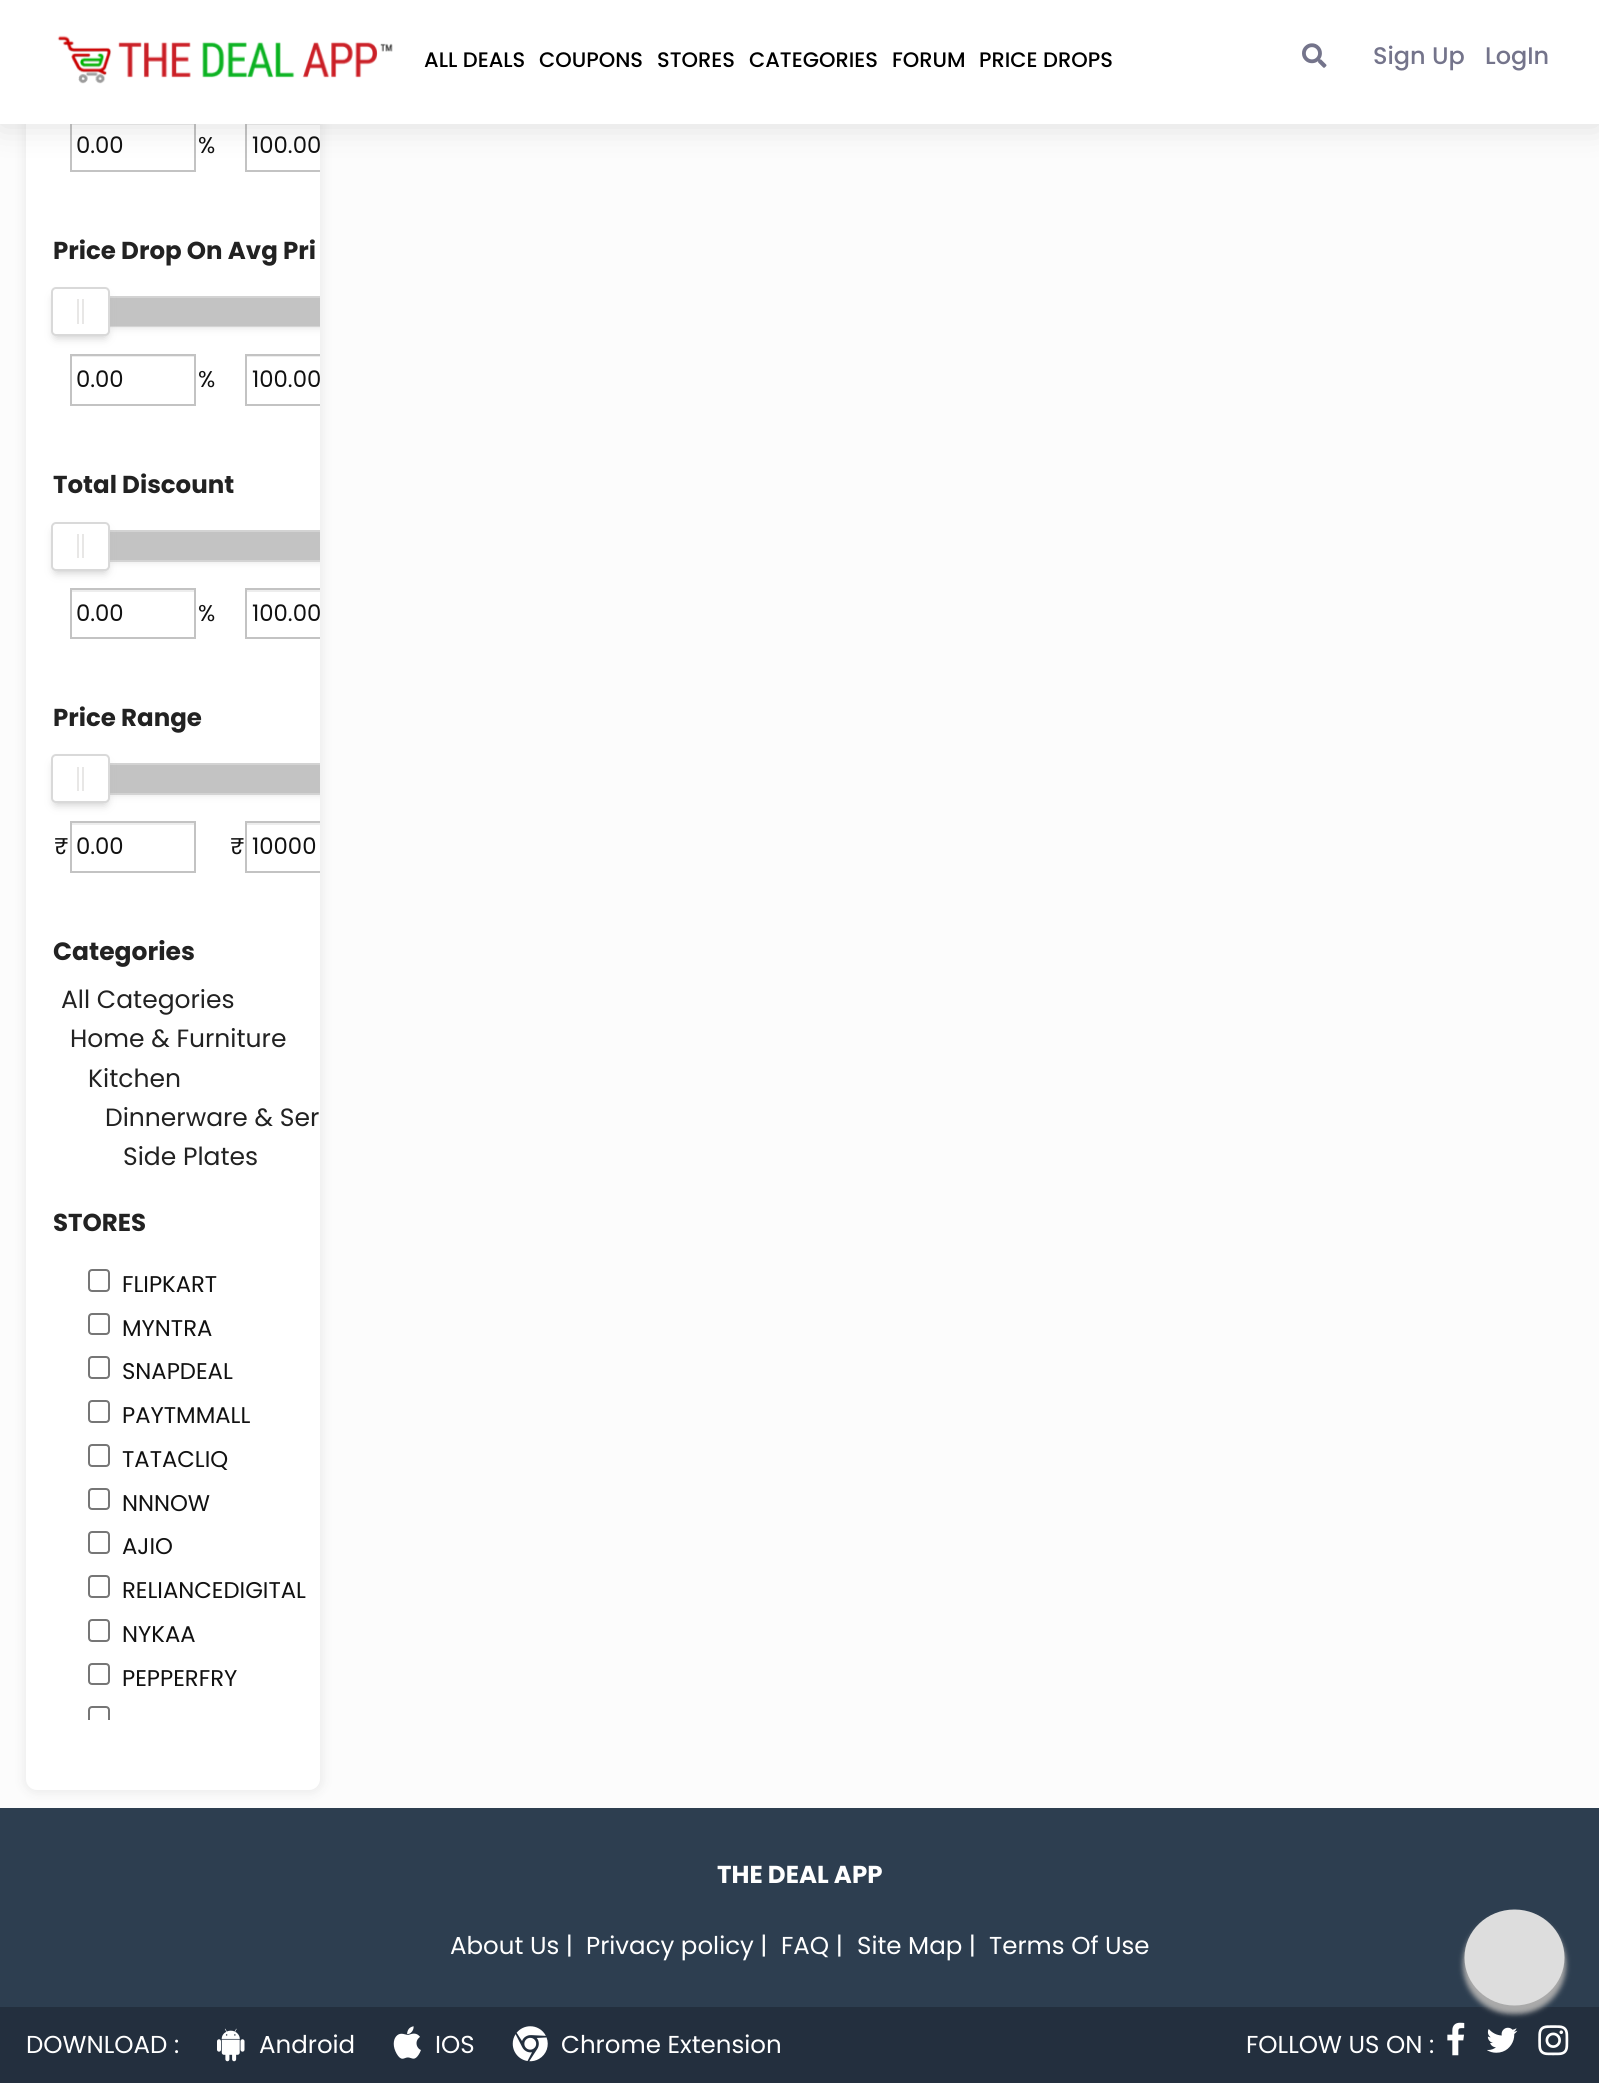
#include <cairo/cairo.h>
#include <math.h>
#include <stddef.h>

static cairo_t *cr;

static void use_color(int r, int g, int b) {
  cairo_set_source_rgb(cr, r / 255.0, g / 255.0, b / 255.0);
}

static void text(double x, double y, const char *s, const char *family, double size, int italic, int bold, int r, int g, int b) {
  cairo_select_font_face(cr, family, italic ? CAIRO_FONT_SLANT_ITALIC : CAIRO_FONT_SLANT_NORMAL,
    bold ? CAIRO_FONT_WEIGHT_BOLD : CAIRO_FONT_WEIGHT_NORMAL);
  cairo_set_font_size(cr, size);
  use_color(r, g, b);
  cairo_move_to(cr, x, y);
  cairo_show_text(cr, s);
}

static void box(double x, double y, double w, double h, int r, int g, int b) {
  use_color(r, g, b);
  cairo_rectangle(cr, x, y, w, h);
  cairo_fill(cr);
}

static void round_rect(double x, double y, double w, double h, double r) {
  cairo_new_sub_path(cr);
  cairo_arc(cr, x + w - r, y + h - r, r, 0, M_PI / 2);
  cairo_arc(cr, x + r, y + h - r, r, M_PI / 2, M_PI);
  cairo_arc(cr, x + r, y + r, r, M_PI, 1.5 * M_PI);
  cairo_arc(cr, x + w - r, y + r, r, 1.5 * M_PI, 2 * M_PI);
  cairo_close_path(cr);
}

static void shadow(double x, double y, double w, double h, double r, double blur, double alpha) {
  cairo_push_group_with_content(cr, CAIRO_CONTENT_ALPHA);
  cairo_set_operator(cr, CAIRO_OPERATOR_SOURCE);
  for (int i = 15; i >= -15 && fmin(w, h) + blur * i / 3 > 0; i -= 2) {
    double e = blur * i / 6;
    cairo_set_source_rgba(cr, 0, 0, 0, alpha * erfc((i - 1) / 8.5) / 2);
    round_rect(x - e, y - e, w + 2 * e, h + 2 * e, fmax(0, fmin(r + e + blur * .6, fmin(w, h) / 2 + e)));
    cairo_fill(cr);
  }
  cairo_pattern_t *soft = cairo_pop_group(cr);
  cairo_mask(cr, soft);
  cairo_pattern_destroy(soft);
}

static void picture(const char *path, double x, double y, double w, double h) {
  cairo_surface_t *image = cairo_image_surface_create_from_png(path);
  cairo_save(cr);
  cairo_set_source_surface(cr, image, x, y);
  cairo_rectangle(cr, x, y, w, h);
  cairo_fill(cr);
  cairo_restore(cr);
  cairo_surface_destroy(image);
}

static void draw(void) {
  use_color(252, 252, 252);
  cairo_paint(cr);
  box(0, 1808, 1599, 199, 45, 62, 80);
  use_color(238, 238, 238);
  shadow(23, -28, 301, 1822, 14, 4.5, 1);
  use_color(255, 255, 255);
  round_rect(26, -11, 294, 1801, 11);
  cairo_fill(cr);
  box(72, 124, 122, 1, 237, 237, 237);
  cairo_rectangle(cr, 71, 122, 124, 49);
  use_color(195, 195, 195);
  cairo_stroke(cr);
  box(247, 124, 73, 1, 237, 237, 237);
  use_color(195, 195, 195);
  cairo_new_path(cr);
  cairo_move_to(cr, 245, 121);
  cairo_line_to(cr, 245, 172);
  cairo_line_to(cr, 320, 172);
  cairo_line_to(cr, 320, 170);
  cairo_line_to(cr, 247, 170);
  cairo_line_to(cr, 247, 123);
  cairo_line_to(cr, 320, 123);
  cairo_line_to(cr, 320, 121);
  cairo_close_path(cr);
  cairo_fill(cr);
  use_color(0, 0, 0);
  shadow(0, 2, 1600, 124, 0, 17.5, 0.12);
  box(0, 0, 1599, 124, 255, 255, 255);
  picture("img_01.png", 57, 35, 336, 49);
  box(0, 2007, 1599, 76, 35, 47, 62);
  picture("img_06.png", 1447, 2022, 18, 34);
  use_color(170, 170, 170);
  shadow(1463, 1915, 103, 99, 49.5, 2.5, 1);
  use_color(221, 221, 221);
  cairo_new_path(cr);
  cairo_move_to(cr, 1514.5, 1909.5);
  cairo_curve_to(cr, 1542, 1909.5, 1564.5, 1931, 1564.5, 1957.5);
  cairo_curve_to(cr, 1564.5, 1984, 1542, 2005.5, 1514.5, 2005.5);
  cairo_curve_to(cr, 1487, 2005.5, 1464.5, 1984, 1464.5, 1957.5);
  cairo_curve_to(cr, 1464.5, 1931, 1487, 1909.5, 1514.5, 1909.5);
  cairo_close_path(cr);
  cairo_fill(cr);
  picture("img_02.png", 1302, 43, 25, 25);
  cairo_save(cr);
  round_rect(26, -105, 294, 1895, 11);
  cairo_clip(cr);
  use_color(187, 187, 187);
  shadow(88, 310, 336, 14, 0, 5, 1);
  cairo_restore(cr);
  use_color(211, 211, 211);
  cairo_new_path(cr);
  cairo_move_to(cr, 86, 296);
  cairo_curve_to(cr, 82, 296, 79, 299, 79, 303);
  cairo_line_to(cr, 79, 320);
  cairo_curve_to(cr, 79, 324, 82, 327, 86, 327);
  cairo_line_to(cr, 320, 327);
  cairo_line_to(cr, 320, 325);
  cairo_line_to(cr, 86, 325);
  cairo_curve_to(cr, 83, 325, 81, 323, 81, 320);
  cairo_line_to(cr, 81, 303);
  cairo_curve_to(cr, 81, 300, 83, 298, 86, 298);
  cairo_line_to(cr, 320, 298);
  cairo_line_to(cr, 320, 296);
  cairo_close_path(cr);
  cairo_fill(cr);
  box(110, 298, 210, 28, 195, 195, 195);
  use_color(187, 187, 187);
  shadow(56, 298, 49, 38, 0, 5, 1);
  use_color(255, 255, 255);
  round_rect(52, 288, 57, 47, 4);
  cairo_fill_preserve(cr);
  use_color(217, 217, 217);
  cairo_stroke(cr);
  box(77, 299, 2, 25, 232, 231, 230);
  box(82, 299, 2, 25, 232, 231, 230);
  box(72, 356, 122, 1, 237, 237, 237);
  cairo_rectangle(cr, 71, 355, 124, 50);
  use_color(195, 195, 195);
  cairo_stroke(cr);
  box(247, 356, 73, 1, 237, 237, 237);
  use_color(195, 195, 195);
  cairo_new_path(cr);
  cairo_move_to(cr, 245, 354);
  cairo_line_to(cr, 245, 406);
  cairo_line_to(cr, 320, 406);
  cairo_line_to(cr, 320, 404);
  cairo_line_to(cr, 247, 404);
  cairo_line_to(cr, 247, 356);
  cairo_line_to(cr, 320, 356);
  cairo_line_to(cr, 320, 354);
  cairo_close_path(cr);
  cairo_fill(cr);
  cairo_save(cr);
  round_rect(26, -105, 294, 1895, 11);
  cairo_clip(cr);
  use_color(187, 187, 187);
  shadow(88, 544, 336, 14, 0, 5, 1);
  cairo_restore(cr);
  use_color(211, 211, 211);
  cairo_new_path(cr);
  cairo_move_to(cr, 86, 530);
  cairo_curve_to(cr, 77, 530, 79, 540, 79, 546);
  cairo_curve_to(cr, 79, 551, 77, 560, 85, 562);
  cairo_line_to(cr, 320, 562);
  cairo_line_to(cr, 320, 560);
  cairo_line_to(cr, 86, 560);
  cairo_curve_to(cr, 83, 560, 81, 558, 81, 555);
  cairo_line_to(cr, 81, 537);
  cairo_curve_to(cr, 81, 534, 83, 532, 86, 532);
  cairo_line_to(cr, 320, 532);
  cairo_line_to(cr, 320, 530);
  cairo_close_path(cr);
  cairo_fill(cr);
  box(110, 532, 210, 28, 195, 195, 195);
  use_color(187, 187, 187);
  shadow(56, 532, 49, 39, 0, 5, 1);
  use_color(255, 255, 255);
  round_rect(52, 523, 57, 47, 4);
  cairo_fill_preserve(cr);
  use_color(217, 217, 217);
  cairo_stroke(cr);
  box(77, 534, 2, 24, 232, 231, 230);
  box(82, 534, 2, 24, 232, 231, 230);
  box(72, 590, 122, 2, 237, 237, 237);
  cairo_rectangle(cr, 71, 589, 124, 49);
  use_color(195, 195, 195);
  cairo_stroke(cr);
  box(247, 590, 73, 2, 237, 237, 237);
  use_color(195, 195, 195);
  cairo_new_path(cr);
  cairo_move_to(cr, 245, 588);
  cairo_line_to(cr, 245, 639);
  cairo_line_to(cr, 320, 639);
  cairo_line_to(cr, 320, 637);
  cairo_line_to(cr, 247, 637);
  cairo_line_to(cr, 247, 590);
  cairo_line_to(cr, 320, 590);
  cairo_line_to(cr, 320, 588);
  cairo_close_path(cr);
  cairo_fill(cr);
  cairo_save(cr);
  round_rect(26, -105, 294, 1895, 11);
  cairo_clip(cr);
  use_color(187, 187, 187);
  shadow(88, 777, 336, 14, 0, 5, 1);
  cairo_restore(cr);
  use_color(211, 211, 211);
  cairo_new_path(cr);
  cairo_move_to(cr, 86, 763);
  cairo_curve_to(cr, 77, 763, 79, 773, 79, 779);
  cairo_curve_to(cr, 79, 784, 77, 793, 85, 795);
  cairo_line_to(cr, 320, 795);
  cairo_line_to(cr, 320, 793);
  cairo_line_to(cr, 86, 793);
  cairo_curve_to(cr, 83, 793, 81, 791, 81, 788);
  cairo_line_to(cr, 81, 770);
  cairo_curve_to(cr, 81, 767, 83, 765, 86, 765);
  cairo_line_to(cr, 320, 765);
  cairo_line_to(cr, 320, 763);
  cairo_close_path(cr);
  cairo_fill(cr);
  box(110, 765, 210, 28, 195, 195, 195);
  use_color(187, 187, 187);
  shadow(56, 765, 49, 38, 0, 5, 1);
  use_color(255, 255, 255);
  round_rect(52, 755, 57, 47, 4);
  cairo_fill_preserve(cr);
  use_color(217, 217, 217);
  cairo_stroke(cr);
  box(77, 767, 2, 24, 232, 231, 230);
  box(82, 767, 2, 24, 232, 231, 230);
  box(72, 823, 122, 2, 237, 237, 237);
  cairo_rectangle(cr, 71, 822, 124, 50);
  use_color(195, 195, 195);
  cairo_stroke(cr);
  box(247, 823, 73, 2, 237, 237, 237);
  use_color(195, 195, 195);
  cairo_new_path(cr);
  cairo_move_to(cr, 245, 821);
  cairo_line_to(cr, 245, 873);
  cairo_line_to(cr, 320, 873);
  cairo_line_to(cr, 320, 871);
  cairo_line_to(cr, 247, 871);
  cairo_line_to(cr, 247, 823);
  cairo_line_to(cr, 320, 823);
  cairo_line_to(cr, 320, 821);
  cairo_close_path(cr);
  cairo_fill(cr);
  round_rect(89, 1270, 20, 21, 3);
  use_color(118, 118, 118);
  cairo_stroke(cr);
  round_rect(89, 1314, 20, 20, 3);
  cairo_stroke(cr);
  round_rect(89, 1357, 20, 21, 3);
  cairo_stroke(cr);
  round_rect(89, 1401, 20, 21, 3);
  cairo_stroke(cr);
  round_rect(89, 1445, 20, 21, 3);
  cairo_stroke(cr);
  round_rect(89, 1489, 20, 20, 3);
  cairo_stroke(cr);
  round_rect(89, 1532, 20, 21, 3);
  cairo_stroke(cr);
  round_rect(89, 1576, 20, 21, 3);
  cairo_stroke(cr);
  round_rect(89, 1620, 20, 21, 3);
  cairo_stroke(cr);
  round_rect(89, 1664, 20, 20, 3);
  cairo_stroke(cr);
  cairo_save(cr);
  cairo_rectangle(cr, 53, 1705, 201, 15);
  cairo_clip(cr);
  round_rect(89, 1707, 20, 21, 3);
  cairo_stroke(cr);
  cairo_restore(cr);
  picture("img_03.png", 217, 2028, 28, 34);
  picture("img_04.png", 393, 2026, 28, 33);
  picture("img_05.png", 512, 2026, 36, 36);
  picture("img_07.png", 1487, 2027, 31, 26);
  picture("img_08.png", 1538, 2025, 31, 31);
  text(424, 67, "ALL DEALS", "Poppins Medium", 21, 0, 0, 0, 0, 0);
  text(539, 67, "COUPONS", "Poppins Medium", 21, 0, 0, 0, 0, 0);
  text(657, 67, "STORES", "Poppins Medium", 21, 0, 0, 0, 0, 0);
  text(749, 67, "CATEGORIES", "Poppins Medium", 21, 0, 0, 0, 0, 0);
  text(892, 67, "FORUM", "Poppins Medium", 21, 0, 0, 0, 0, 0);
  text(979, 67, "PRICE DROPS", "Poppins Medium", 21, 0, 0, 0, 0, 0);
  text(1373, 64, "Sign Up", "Poppins Medium", 24, 0, 0, 116, 116, 139);
  text(1485, 64, "LogIn", "Poppins Medium", 24, 0, 0, 116, 116, 139);
  text(76, 153, "0.00", "Poppins", 22.75, 0, 0, 17, 17, 17);
  text(198, 153, "%", "Poppins", 22.75, 0, 0, 17, 17, 17);
  text(252, 153, "100.00", "Poppins", 22.75, 0, 0, 17, 17, 17);
  text(53, 259, "Price Drop On Avg Pri", "Poppins", 24.5, 0, 1, 34, 34, 34);
  text(76, 387, "0.00", "Poppins", 22.75, 0, 0, 17, 17, 17);
  text(198, 387, "%", "Poppins", 22.75, 0, 0, 17, 17, 17);
  text(252, 387, "100.00", "Poppins", 22.75, 0, 0, 17, 17, 17);
  text(53, 493, "Total Discount", "Poppins", 24.5, 0, 1, 34, 34, 34);
  text(76, 621, "0.00", "Poppins", 22.75, 0, 0, 17, 17, 17);
  text(198, 621, "%", "Poppins", 22.75, 0, 0, 17, 17, 17);
  text(252, 621, "100.00", "Poppins", 22.75, 0, 0, 17, 17, 17);
  text(53, 726, "Price Range", "Poppins", 24.5, 0, 1, 34, 34, 34);
  text(54, 854, "₹", "Poppins", 22.75, 0, 0, 17, 17, 17);
  text(76, 854, "0.00", "Poppins", 22.75, 0, 0, 17, 17, 17);
  text(230, 854, "₹", "Poppins", 22.75, 0, 0, 17, 17, 17);
  text(252, 854, "10000", "Poppins", 22.75, 0, 0, 17, 17, 17);
  text(53, 960, "Categories", "Poppins", 25, 0, 1, 34, 34, 34);
  text(61, 1008, "All Categories", "Poppins", 25, 0, 0, 34, 34, 34);
  text(70, 1047, "Home & Furniture", "Poppins", 25, 0, 0, 34, 34, 34);
  text(88, 1087, "Kitchen", "Poppins", 25, 0, 0, 34, 34, 34);
  text(105, 1126, "Dinnerware & Ser", "Poppins", 25, 0, 0, 34, 34, 34);
  text(123, 1165, "Side Plates", "Poppins", 25, 0, 0, 34, 34, 34);
  text(53, 1231, "STORES", "Poppins", 24.5, 0, 1, 34, 34, 34);
  text(122, 1292, "FLIPKART", "Poppins", 22.75, 0, 0, 17, 17, 17);
  text(122, 1336, "MYNTRA", "Poppins", 22.75, 0, 0, 17, 17, 17);
  text(122, 1379, "SNAPDEAL", "Poppins", 22.75, 0, 0, 17, 17, 17);
  text(122, 1423, "PAYTMMALL", "Poppins", 22.75, 0, 0, 17, 17, 17);
  text(122, 1467, "TATACLIQ", "Poppins", 22.75, 0, 0, 17, 17, 17);
  text(122, 1511, "NNNOW", "Poppins", 22.75, 0, 0, 17, 17, 17);
  text(122, 1554, "AJIO", "Poppins", 22.75, 0, 0, 17, 17, 17);
  text(122, 1598, "RELIANCEDIGITAL", "Poppins", 22.75, 0, 0, 17, 17, 17);
  text(122, 1642, "NYKAA", "Poppins", 22.75, 0, 0, 17, 17, 17);
  text(122, 1686, "PEPPERFRY", "Poppins", 22.75, 0, 0, 17, 17, 17);
  text(717, 1883, "THE DEAL APP", "Poppins", 24.5, 0, 1, 255, 255, 255);
  text(450, 1954, "About Us |", "Poppins", 24.5, 0, 0, 255, 255, 255);
  text(586, 1954, "Privacy policy |", "Poppins", 24.5, 0, 0, 255, 255, 255);
  text(781, 1954, "FAQ |", "Poppins", 24.5, 0, 0, 255, 255, 255);
  text(857, 1954, "Site Map |", "Poppins", 24.5, 0, 0, 255, 255, 255);
  text(989, 1954, "Terms Of Use", "Poppins", 24.5, 0, 0, 255, 255, 255);
  text(26, 2053, "DOWNLOAD :", "Poppins", 24.5, 0, 0, 255, 255, 255);
  text(259, 2053, "Android", "Poppins", 24.5, 0, 0, 255, 255, 255);
  text(435, 2053, "IOS", "Poppins", 24.5, 0, 0, 255, 255, 255);
  text(561, 2053, "Chrome Extension", "Poppins", 24.5, 0, 0, 255, 255, 255);
  text(1246, 2053, "FOLLOW US ON :", "Poppins", 24.5, 0, 0, 255, 255, 255);
}

int main(void) {
  cairo_surface_t *surface = cairo_image_surface_create(CAIRO_FORMAT_RGB24, 1599, 2083);
  cr = cairo_create(surface);
  cairo_font_options_t *options = cairo_font_options_create();
  cairo_font_options_set_hint_metrics(options, CAIRO_HINT_METRICS_OFF);
  cairo_font_options_set_hint_style(options, CAIRO_HINT_STYLE_NONE);
  cairo_set_font_options(cr, options);
  cairo_set_miter_limit(cr, 4);
  draw();
  cairo_surface_write_to_png(surface, "out.png");
  cairo_font_options_destroy(options);
  cairo_destroy(cr);
  cairo_surface_destroy(surface);
  return 0;
}
